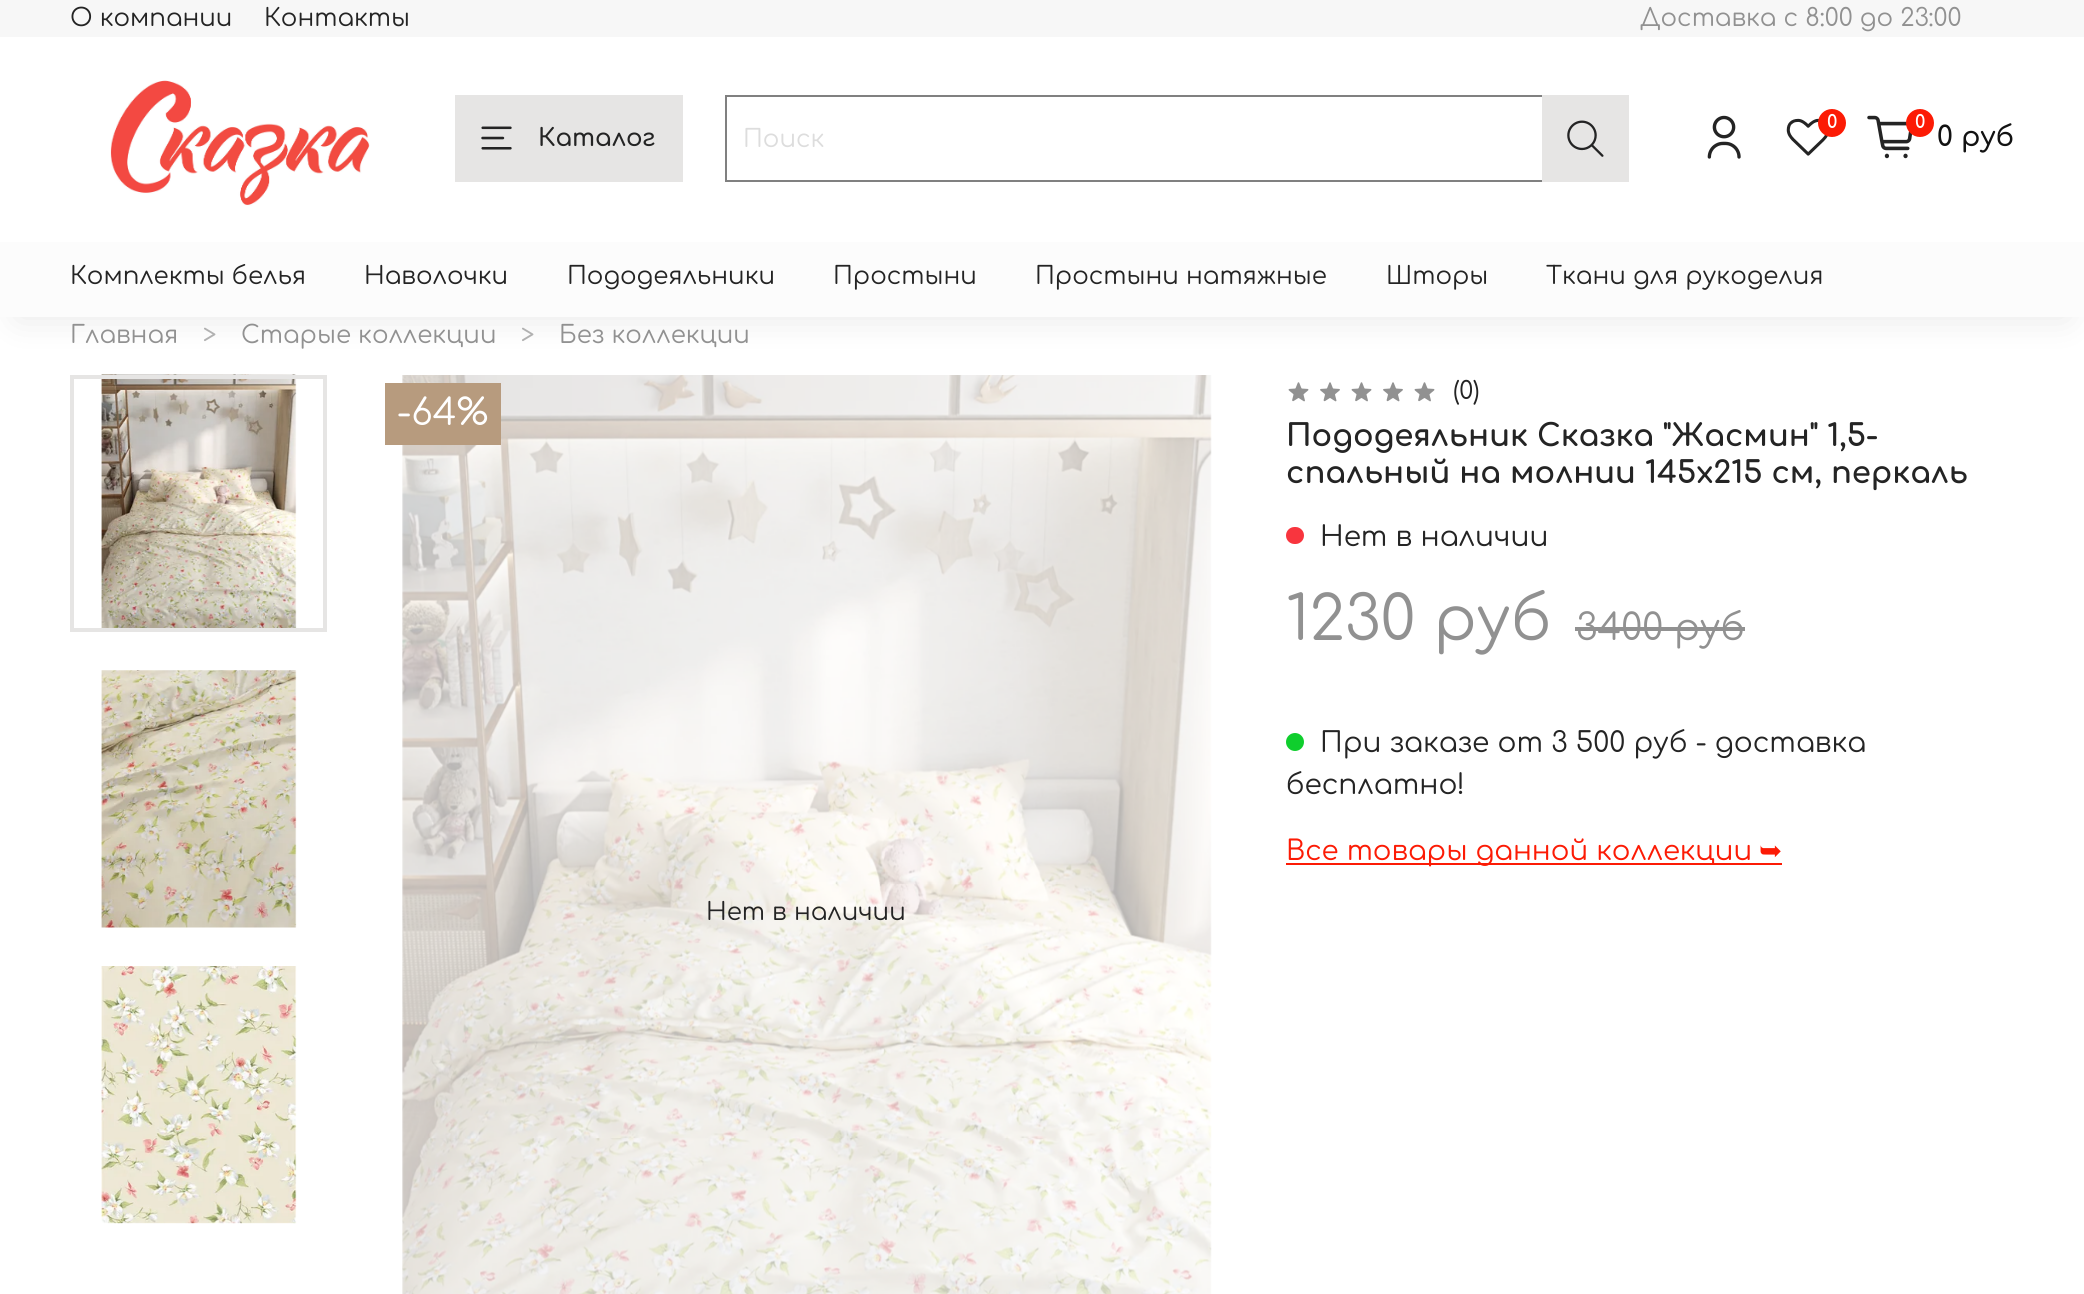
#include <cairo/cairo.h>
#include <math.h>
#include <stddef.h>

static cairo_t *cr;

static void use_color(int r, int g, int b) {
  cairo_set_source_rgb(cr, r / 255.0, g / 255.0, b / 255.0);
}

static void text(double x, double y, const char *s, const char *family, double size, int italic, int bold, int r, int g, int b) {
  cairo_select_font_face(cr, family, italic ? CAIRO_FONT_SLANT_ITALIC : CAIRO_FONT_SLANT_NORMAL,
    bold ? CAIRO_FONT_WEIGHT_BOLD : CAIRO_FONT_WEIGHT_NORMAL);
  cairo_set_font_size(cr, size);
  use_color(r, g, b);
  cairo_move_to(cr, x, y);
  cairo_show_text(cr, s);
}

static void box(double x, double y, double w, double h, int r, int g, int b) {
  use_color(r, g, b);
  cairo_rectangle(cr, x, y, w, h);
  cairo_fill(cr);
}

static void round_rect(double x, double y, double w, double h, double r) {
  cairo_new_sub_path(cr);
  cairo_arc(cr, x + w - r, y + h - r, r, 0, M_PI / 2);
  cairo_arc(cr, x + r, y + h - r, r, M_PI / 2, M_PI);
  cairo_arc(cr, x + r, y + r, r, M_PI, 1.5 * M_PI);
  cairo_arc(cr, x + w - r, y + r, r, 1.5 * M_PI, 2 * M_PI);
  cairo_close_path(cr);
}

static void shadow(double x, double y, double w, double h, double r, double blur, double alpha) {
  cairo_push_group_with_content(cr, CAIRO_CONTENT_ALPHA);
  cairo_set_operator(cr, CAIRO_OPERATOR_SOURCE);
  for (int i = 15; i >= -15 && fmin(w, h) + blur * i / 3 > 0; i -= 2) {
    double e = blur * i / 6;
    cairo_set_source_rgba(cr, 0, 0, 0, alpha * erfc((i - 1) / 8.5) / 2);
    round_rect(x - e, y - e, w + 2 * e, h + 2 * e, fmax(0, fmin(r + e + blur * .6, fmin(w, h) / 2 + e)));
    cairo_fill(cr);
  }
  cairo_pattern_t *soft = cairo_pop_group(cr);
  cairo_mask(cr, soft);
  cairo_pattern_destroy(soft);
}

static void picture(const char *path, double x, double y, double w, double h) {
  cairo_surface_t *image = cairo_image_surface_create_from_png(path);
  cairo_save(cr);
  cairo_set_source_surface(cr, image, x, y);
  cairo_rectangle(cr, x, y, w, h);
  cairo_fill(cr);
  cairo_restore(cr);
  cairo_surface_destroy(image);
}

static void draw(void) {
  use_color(255, 255, 255);
  cairo_paint(cr);
  box(0, 0, 2084, 37, 247, 247, 247);
  picture("img_01.png", 110, 80, 260, 126);
  box(455, 95, 228, 87, 230, 229, 228);
  picture("img_02.png", 481, 126, 31, 24);
  box(725, 95, 817, 2, 128, 128, 128);
  box(725, 180, 817, 2, 128, 128, 128);
  box(725, 95, 2, 87, 128, 128, 128);
  box(1542, 95, 87, 87, 230, 229, 228);
  picture("img_03.png", 1567, 120, 37, 37);
  picture("img_04.png", 1707, 115, 34, 44);
  picture("img_05.png", 1786, 118, 42, 38);
  use_color(252, 27, 5);
  cairo_arc(cr, 1832, 123, 14, 0, 2 * M_PI);
  cairo_fill(cr);
  picture("img_06.png", 1867, 115, 46, 44);
  cairo_arc(cr, 1920, 123, 14, 0, 2 * M_PI);
  cairo_fill(cr);
  use_color(0, 0, 0);
  shadow(18, 277, 2049, 40, 0, 17.5, 0.1);
  box(0, 242, 2084, 75, 252, 252, 252);
  picture("img_07.png", 1288, 382, 21, 20);
  picture("img_08.png", 1320, 382, 20, 20);
  picture("img_07.png", 1351, 382, 21, 20);
  picture("img_08.png", 1383, 382, 20, 20);
  picture("img_07.png", 1414, 382, 21, 20);
  picture("img_09.png", 101, 374, 196, 254);
  cairo_rectangle(cr, 72, 377, 253, 253);
  use_color(230, 229, 228);
  cairo_set_line_width(cr, 4);
  cairo_stroke(cr);
  picture("img_10.png", 101, 670, 196, 258);
  picture("img_11.png", 101, 966, 196, 258);
  picture("img_12.png", 402, 375, 810, 919);
  box(385, 383, 116, 62, 183, 155, 126);
  use_color(248, 53, 62);
  round_rect(1286, 527, 18, 17, 8.5);
  cairo_fill(cr);
  box(1575, 627, 170, 4, 145, 145, 145);
  use_color(15, 206, 45);
  cairo_arc(cr, 1295, 742, 9, 0, 2 * M_PI);
  cairo_fill(cr);
  box(1286, 863, 496, 2, 252, 27, 5);
  text(70, 26, "О компании", "Comfortaa", 24.5, 0, 0, 36, 36, 36);
  text(264, 26, "Контакты", "Comfortaa", 24.5, 0, 0, 36, 36, 36);
  text(1640, 26, "Доставка с 8:00 до 23:00", "Comfortaa", 24.5, 0, 0, 145, 145, 145);
  text(538, 146, "Каталог", "Comfortaa SemiBold", 24.5, 0, 0, 36, 36, 36);
  text(743, 147, "Поиск", "Comfortaa", 24.5, 0, 0, 221, 221, 221);
  text(1827, 128, "0", "Comfortaa", 18, 0, 1, 255, 255, 255);
  text(1915, 128, "0", "Comfortaa", 18, 0, 1, 255, 255, 255);
  text(1937, 146, "0 руб", "Comfortaa SemiBold", 27.6, 0, 0, 18, 18, 18);
  text(70, 284, "Комплекты белья", "Comfortaa", 24.5, 0, 0, 36, 36, 36);
  text(364, 284, "Наволочки", "Comfortaa", 24.5, 0, 0, 36, 36, 36);
  text(567, 284, "Пододеяльники", "Comfortaa", 24.5, 0, 0, 36, 36, 36);
  text(833, 284, "Простыни", "Comfortaa", 24.5, 0, 0, 36, 36, 36);
  text(1035, 284, "Простыни натяжные", "Comfortaa", 24.5, 0, 0, 36, 36, 36);
  text(1386, 284, "Шторы", "Comfortaa", 24.5, 0, 0, 36, 36, 36);
  text(1546, 284, "Ткани для рукоделия", "Comfortaa", 24.5, 0, 0, 36, 36, 36);
  text(70, 343, "Главная", "Comfortaa", 24.5, 0, 0, 145, 145, 145);
  text(203, 343, ">", "Comfortaa", 24.5, 0, 0, 177, 177, 177);
  text(241, 343, "Старые коллекции", "Comfortaa", 24.5, 0, 0, 145, 145, 145);
  text(521, 343, ">", "Comfortaa", 24.5, 0, 0, 177, 177, 177);
  text(559, 343, "Без коллекции", "Comfortaa", 24.5, 0, 0, 145, 145, 145);
  text(1453, 399, "(0)", "Comfortaa", 24.5, 0, 0, 36, 36, 36);
  text(397, 425, "-64%", "Comfortaa", 36.75, 0, 0, 255, 255, 255);
  text(706, 920, "Нет в наличии", "Comfortaa", 24.5, 0, 0, 36, 36, 36);
  text(1286, 446, "Пододеяльник Сказка \"Жасмин\" 1,5-", "Comfortaa", 30.6, 0, 1, 36, 36, 36);
  text(1286, 483, "спальный на молнии 145х215 см, перкаль", "Comfortaa", 30.6, 0, 1, 36, 36, 36);
  text(1320, 546, "Нет в наличии", "Comfortaa", 28, 0, 0, 36, 36, 36);
  text(1286, 640, "1230 руб", "Comfortaa", 61.25, 0, 0, 145, 145, 145);
  text(1576, 640, "3400 руб", "Comfortaa", 36.75, 0, 0, 145, 145, 145);
  text(1320, 752, "При заказе от 3 500 руб - доставка", "Comfortaa", 28, 0, 0, 36, 36, 36);
  text(1286, 794, "бесплатно!", "Comfortaa", 28, 0, 0, 36, 36, 36);
  text(1286, 860, "Все товары данной коллекции", "Comfortaa", 27.6, 0, 0, 252, 27, 5);
  text(1759, 860, "➥", "DejaVu Sans", 27.6, 0, 0, 252, 27, 5);
}

int main(void) {
  cairo_surface_t *surface = cairo_image_surface_create(CAIRO_FORMAT_RGB24, 2084, 1294);
  cr = cairo_create(surface);
  cairo_font_options_t *options = cairo_font_options_create();
  cairo_font_options_set_hint_metrics(options, CAIRO_HINT_METRICS_OFF);
  cairo_font_options_set_hint_style(options, CAIRO_HINT_STYLE_NONE);
  cairo_set_font_options(cr, options);
  cairo_set_miter_limit(cr, 4);
  draw();
  cairo_surface_write_to_png(surface, "out.png");
  cairo_font_options_destroy(options);
  cairo_destroy(cr);
  cairo_surface_destroy(surface);
  return 0;
}
